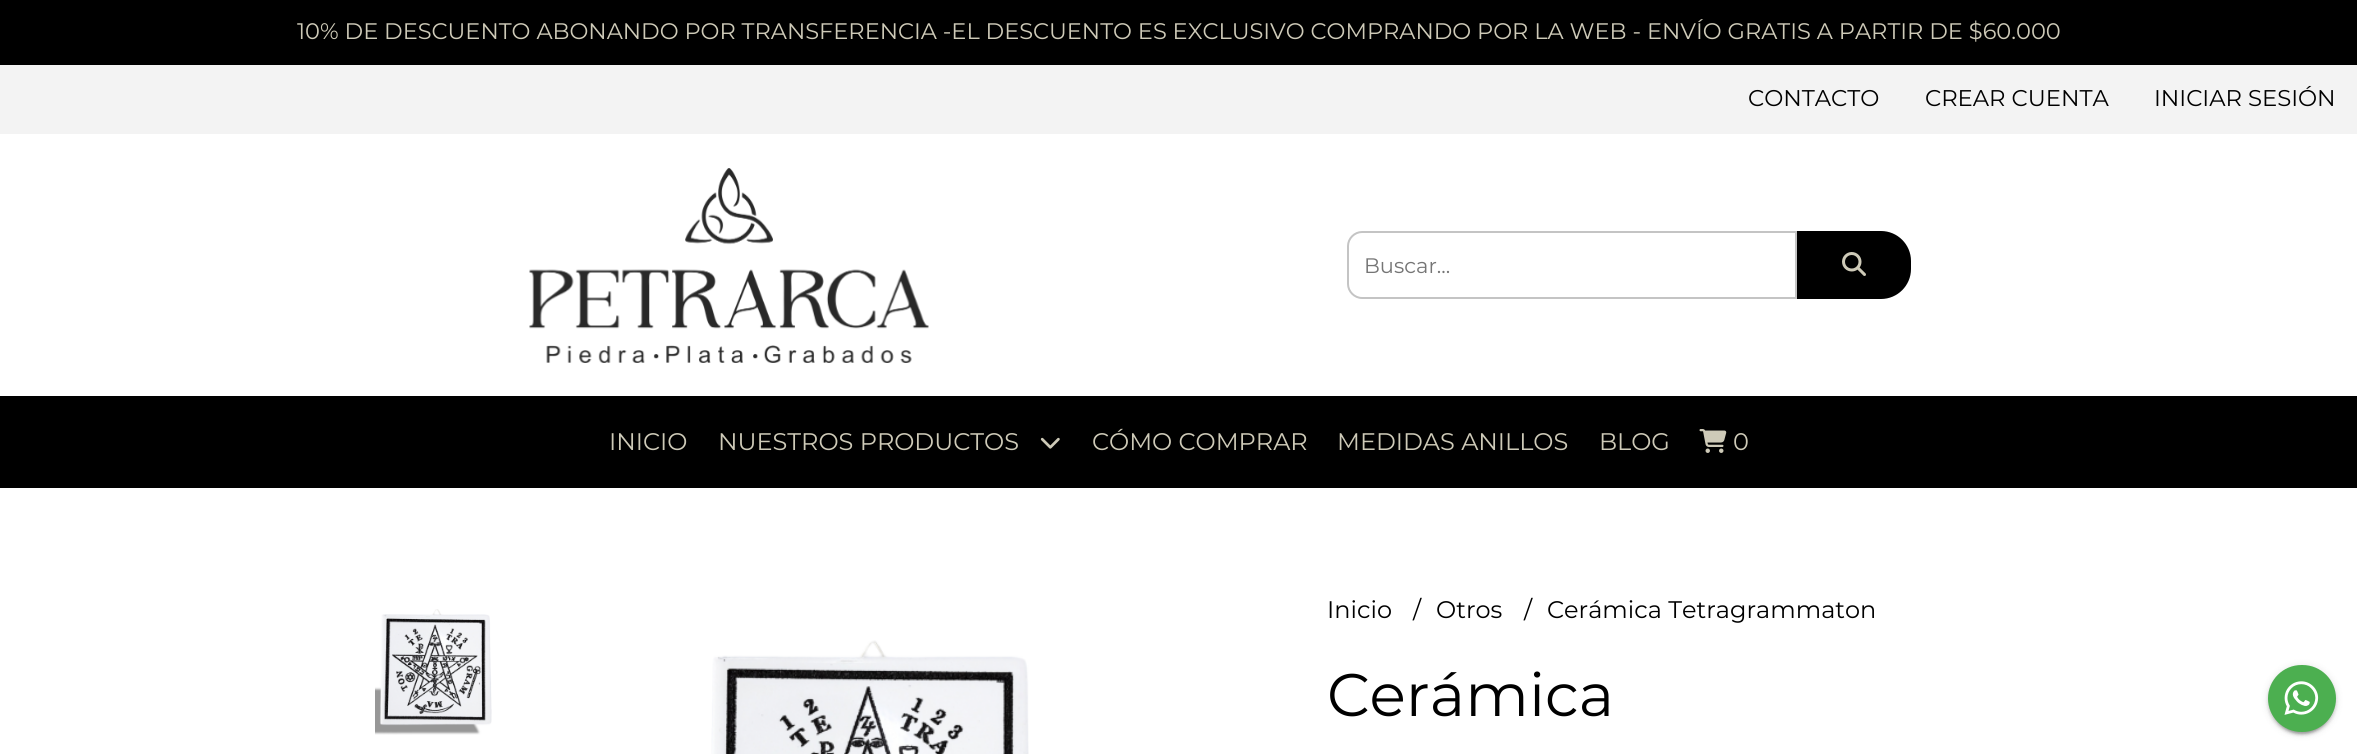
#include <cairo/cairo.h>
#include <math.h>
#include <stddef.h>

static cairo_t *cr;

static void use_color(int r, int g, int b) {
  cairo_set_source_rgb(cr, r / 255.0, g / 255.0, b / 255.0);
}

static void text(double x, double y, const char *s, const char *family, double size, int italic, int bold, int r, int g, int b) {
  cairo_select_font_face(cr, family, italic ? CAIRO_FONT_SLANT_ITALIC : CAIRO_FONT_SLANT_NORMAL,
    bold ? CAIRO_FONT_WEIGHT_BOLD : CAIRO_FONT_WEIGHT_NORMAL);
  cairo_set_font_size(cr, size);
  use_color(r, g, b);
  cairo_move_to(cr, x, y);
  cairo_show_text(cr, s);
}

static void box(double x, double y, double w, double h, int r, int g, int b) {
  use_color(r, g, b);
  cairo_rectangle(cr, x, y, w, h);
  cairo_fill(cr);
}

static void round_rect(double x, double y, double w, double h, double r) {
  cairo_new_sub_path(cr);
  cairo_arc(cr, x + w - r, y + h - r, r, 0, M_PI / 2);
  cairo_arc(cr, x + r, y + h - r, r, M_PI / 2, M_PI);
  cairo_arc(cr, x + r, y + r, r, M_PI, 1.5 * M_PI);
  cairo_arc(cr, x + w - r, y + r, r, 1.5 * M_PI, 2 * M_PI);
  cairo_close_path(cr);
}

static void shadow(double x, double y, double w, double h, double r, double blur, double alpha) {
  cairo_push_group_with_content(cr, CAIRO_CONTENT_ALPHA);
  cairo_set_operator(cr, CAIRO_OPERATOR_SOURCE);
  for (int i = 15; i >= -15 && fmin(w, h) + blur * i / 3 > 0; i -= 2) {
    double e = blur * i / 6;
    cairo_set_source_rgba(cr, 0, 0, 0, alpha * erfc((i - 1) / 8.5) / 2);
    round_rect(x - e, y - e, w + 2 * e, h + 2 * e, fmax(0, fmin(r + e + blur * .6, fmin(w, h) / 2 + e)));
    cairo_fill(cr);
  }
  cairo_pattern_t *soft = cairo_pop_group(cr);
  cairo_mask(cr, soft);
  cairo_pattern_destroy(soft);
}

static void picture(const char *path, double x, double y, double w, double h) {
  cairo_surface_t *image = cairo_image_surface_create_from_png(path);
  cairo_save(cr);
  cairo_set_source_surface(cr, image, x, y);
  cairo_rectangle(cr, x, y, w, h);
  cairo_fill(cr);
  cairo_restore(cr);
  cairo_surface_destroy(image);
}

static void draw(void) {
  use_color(255, 255, 255);
  cairo_paint(cr);
  box(0, 0, 2357, 65, 0, 0, 0);
  box(0, 65, 2357, 69, 243, 243, 243);
  picture("img_01.png", 529, 168, 400, 195);
  cairo_new_path(cr);
  cairo_move_to(cr, 1362, 232);
  cairo_line_to(cr, 1796, 232);
  cairo_line_to(cr, 1796, 298);
  cairo_line_to(cr, 1362, 298);
  cairo_curve_to(cr, 1354.5, 298, 1348, 291.5, 1348, 284);
  cairo_line_to(cr, 1348, 246);
  cairo_curve_to(cr, 1348, 238.5, 1354.5, 232, 1362, 232);
  cairo_close_path(cr);
  use_color(196, 196, 196);
  cairo_stroke(cr);
  use_color(0, 0, 0);
  cairo_new_path(cr);
  cairo_move_to(cr, 1797, 231);
  cairo_line_to(cr, 1881, 231);
  cairo_curve_to(cr, 1897.5, 231, 1911, 244.5, 1911, 261);
  cairo_line_to(cr, 1911, 269);
  cairo_curve_to(cr, 1911, 285.5, 1897.5, 299, 1881, 299);
  cairo_line_to(cr, 1797, 299);
  cairo_close_path(cr);
  cairo_fill(cr);
  picture("img_02.png", 1842, 252, 24, 24);
  box(0, 396, 2357, 92, 0, 0, 0);
  picture("img_03.png", 1040, 437, 20, 12);
  picture("img_04.png", 1699, 429, 28, 24);
  picture("img_05.png", 375, 609, 117, 126);
  picture("img_06.png", 711, 640, 318, 114);
  use_color(0, 0, 0);
  shadow(2271, 672, 62, 62, 31, 1, 0.2);
  shadow(2268, 666, 68, 68, 34, 4, 0.12);
  shadow(2268, 668, 68, 67, 33.5, 1.5, 0.14);
  use_color(76, 175, 80);
  round_rect(2268, 665, 68, 67, 33.5);
  cairo_fill(cr);
  picture("img_07.png", 2284, 681, 35, 34);
  text(297, 39, "10% DE DESCUENTO ABONANDO POR TRANSFERENCIA -EL DESCUENTO ES EXCLUSIVO COMPRANDO POR LA WEB - ENVÍO GRATIS A PARTIR DE $60.000", "Montserrat", 22.5, 0, 0, 206, 202, 184);
  text(1748, 106, "CONTACTO", "Montserrat", 22.75, 0, 0, 0, 0, 0);
  text(1925, 106, "CREAR CUENTA", "Montserrat", 22.75, 0, 0, 0, 0, 0);
  text(2154, 106, "INICIAR SESIÓN", "Montserrat", 22.75, 0, 0, 0, 0, 0);
  text(1364, 273, "Buscar...", "Montserrat", 21, 0, 0, 117, 117, 117);
  text(609, 450, "INICIO", "Montserrat", 24, 0, 0, 206, 202, 184);
  text(718, 450, "NUESTROS PRODUCTOS", "Montserrat", 24, 0, 0, 206, 202, 184);
  text(1092, 450, "CÓMO COMPRAR", "Montserrat", 24, 0, 0, 206, 202, 184);
  text(1337, 450, "MEDIDAS ANILLOS", "Montserrat", 24, 0, 0, 206, 202, 184);
  text(1599, 450, "BLOG", "Montserrat", 24, 0, 0, 206, 202, 184);
  text(1733, 450, "0", "Montserrat", 24, 0, 0, 206, 202, 184);
  text(1327, 618, "Inicio", "Montserrat", 24, 0, 0, 0, 0, 0);
  text(1413, 618, "/", "Montserrat", 24, 0, 0, 0, 0, 0);
  text(1436, 618, "Otros", "Montserrat", 24, 0, 0, 0, 0, 0);
  text(1524, 618, "/", "Montserrat", 24, 0, 0, 0, 0, 0);
  text(1547, 618, "Cerámica Tetragrammaton", "Montserrat", 24, 0, 0, 0, 0, 0);
  text(1327, 716, "Cerámica", "Montserrat", 60, 0, 0, 0, 0, 0);
}

int main(void) {
  cairo_surface_t *surface = cairo_image_surface_create(CAIRO_FORMAT_RGB24, 2357, 754);
  cr = cairo_create(surface);
  cairo_font_options_t *options = cairo_font_options_create();
  cairo_font_options_set_hint_metrics(options, CAIRO_HINT_METRICS_OFF);
  cairo_font_options_set_hint_style(options, CAIRO_HINT_STYLE_NONE);
  cairo_set_font_options(cr, options);
  cairo_set_miter_limit(cr, 4);
  draw();
  cairo_surface_write_to_png(surface, "out.png");
  cairo_font_options_destroy(options);
  cairo_destroy(cr);
  cairo_surface_destroy(surface);
  return 0;
}
